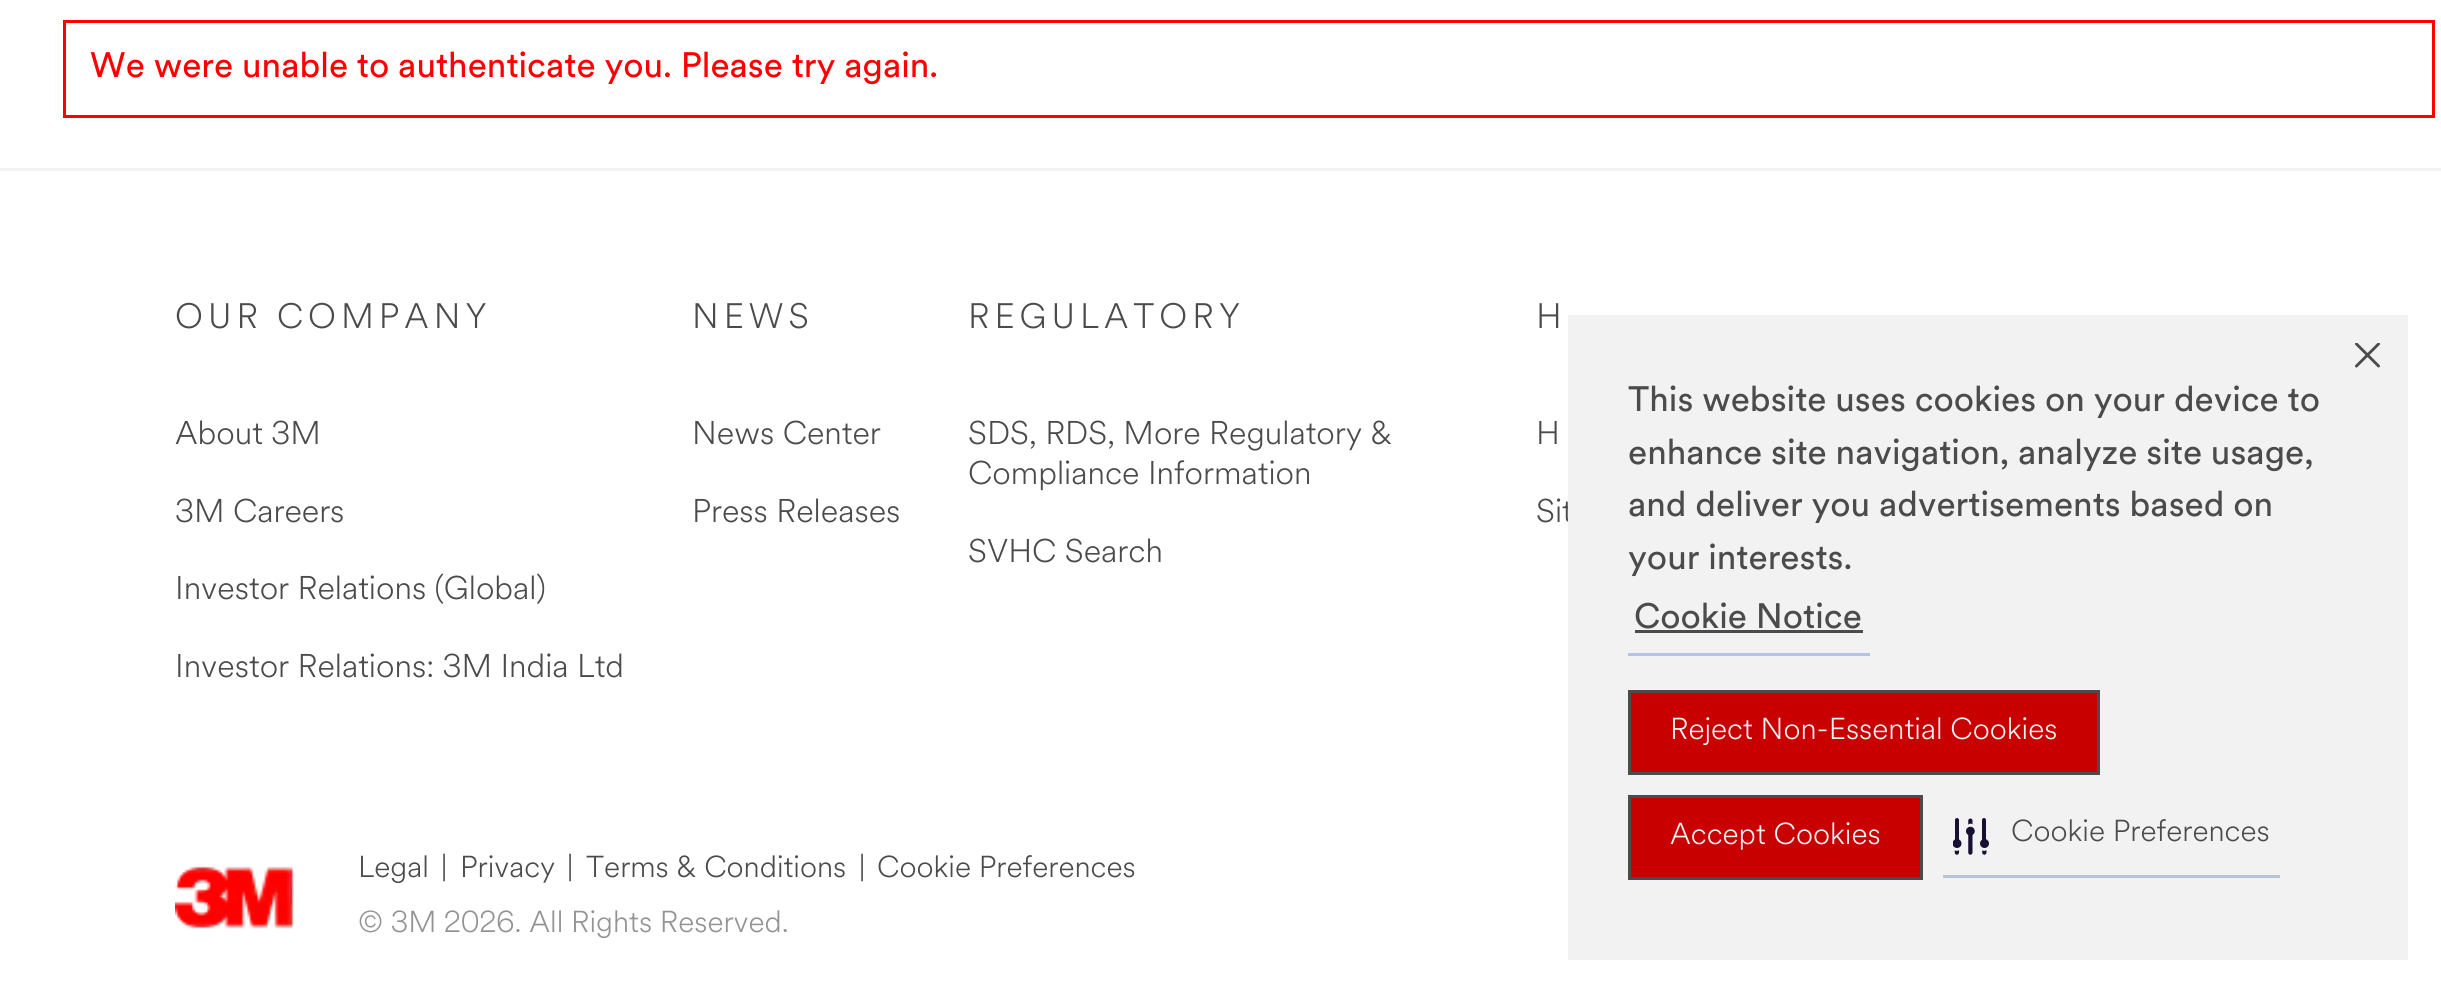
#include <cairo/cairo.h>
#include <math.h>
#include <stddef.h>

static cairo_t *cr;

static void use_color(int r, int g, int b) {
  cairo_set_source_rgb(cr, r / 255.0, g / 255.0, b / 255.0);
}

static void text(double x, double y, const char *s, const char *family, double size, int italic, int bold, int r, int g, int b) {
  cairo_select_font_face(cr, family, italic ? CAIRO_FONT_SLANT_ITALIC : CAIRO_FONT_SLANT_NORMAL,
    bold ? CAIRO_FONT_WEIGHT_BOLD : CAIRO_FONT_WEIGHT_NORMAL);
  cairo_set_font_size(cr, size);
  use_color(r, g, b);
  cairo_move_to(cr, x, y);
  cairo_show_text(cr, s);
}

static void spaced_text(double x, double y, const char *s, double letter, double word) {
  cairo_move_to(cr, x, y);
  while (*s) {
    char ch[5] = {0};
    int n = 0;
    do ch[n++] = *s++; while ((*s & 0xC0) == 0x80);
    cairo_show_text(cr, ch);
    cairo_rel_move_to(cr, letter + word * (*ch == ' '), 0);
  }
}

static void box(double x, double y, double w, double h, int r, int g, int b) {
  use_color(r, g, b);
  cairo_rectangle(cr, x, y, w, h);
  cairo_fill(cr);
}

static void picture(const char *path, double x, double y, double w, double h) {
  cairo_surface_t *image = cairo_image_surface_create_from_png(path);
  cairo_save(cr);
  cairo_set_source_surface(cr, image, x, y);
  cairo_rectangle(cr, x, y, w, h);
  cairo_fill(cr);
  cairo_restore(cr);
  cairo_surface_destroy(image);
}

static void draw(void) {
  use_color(255, 255, 255);
  cairo_paint(cr);
  cairo_rectangle(cr, 64.5, 21.5, 2369, 95);
  use_color(255, 0, 0);
  cairo_set_line_width(cr, 3);
  cairo_stroke(cr);
  box(0, 168, 2441, 3, 242, 242, 242);
  picture("img_01.png", 175, 866, 119, 63);
  text(90, 77, "We were unable to authenticate you. Please try again.", "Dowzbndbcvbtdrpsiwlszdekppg", 35, 0, 0, 255, 0, 0);
  cairo_select_font_face(cr, "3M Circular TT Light", CAIRO_FONT_SLANT_NORMAL, CAIRO_FONT_WEIGHT_NORMAL);
  use_color(75, 75, 75);
  spaced_text(175, 328, "OUR COMPANY", 5, 0);
  text(175, 444, "About 3M", "3M Circular TT Light", 32.5, 0, 0, 75, 75, 75);
  text(175, 522, "3M Careers", "3M Circular TT Light", 32.5, 0, 0, 75, 75, 75);
  text(175, 599, "Investor Relations (Global)", "3M Circular TT Light", 32.5, 0, 0, 75, 75, 75);
  text(175, 677, "Investor Relations: 3M India Ltd", "3M Circular TT Light", 32.5, 0, 0, 75, 75, 75);
  cairo_set_font_size(cr, 35);
  spaced_text(692, 328, "NEWS", 5, 0);
  text(692, 444, "News Center", "3M Circular TT Light", 32.5, 0, 0, 75, 75, 75);
  text(692, 522, "Press Releases", "3M Circular TT Light", 32.5, 0, 0, 75, 75, 75);
  cairo_set_font_size(cr, 35);
  spaced_text(968, 328, "REGULATORY", 5, 0);
  text(968, 444, "SDS, RDS, More Regulatory &", "3M Circular TT Light", 32.5, 0, 0, 75, 75, 75);
  text(968, 484, "Compliance Information", "3M Circular TT Light", 32.5, 0, 0, 75, 75, 75);
  text(968, 562, "SVHC Search", "3M Circular TT Light", 32.5, 0, 0, 75, 75, 75);
  cairo_set_font_size(cr, 35);
  spaced_text(1536, 328, "H", 5, 0);
  text(1536, 444, "H", "3M Circular TT Light", 32.5, 0, 0, 75, 75, 75);
  text(1536, 522, "Sit", "3M Circular TT Light", 32.5, 0, 0, 75, 75, 75);
  text(358, 877, "Legal", "3M Circular TT Light", 30, 0, 0, 75, 75, 75);
  text(441, 877, "|", "3M Circular TT Light", 30, 0, 0, 75, 75, 75);
  text(460, 877, "Privacy", "3M Circular TT Light", 30, 0, 0, 75, 75, 75);
  text(567, 877, "|", "3M Circular TT Light", 30, 0, 0, 75, 75, 75);
  text(586, 877, "Terms & Conditions", "3M Circular TT Light", 30, 0, 0, 75, 75, 75);
  text(859, 877, "|", "3M Circular TT Light", 30, 0, 0, 75, 75, 75);
  text(877, 877, "Cookie Preferences", "3M Circular TT Light", 30, 0, 0, 75, 75, 75);
  text(358, 932, "© 3M 2026. All Rights Reserved.", "3M Circular TT Light", 30, 0, 0, 147, 147, 147);
  box(1568, 315, 840, 645, 242, 242, 242);
  text(1628, 411, "This website uses cookies on your device to", "Dowzbndbcvbtdrpsiwlszdekppg", 35, 0, 0, 75, 75, 75);
  text(1628, 464, "enhance site navigation, analyze site usage,", "Dowzbndbcvbtdrpsiwlszdekppg", 35, 0, 0, 75, 75, 75);
  text(1628, 516, "and deliver you advertisements based on", "Dowzbndbcvbtdrpsiwlszdekppg", 35, 0, 0, 75, 75, 75);
  text(1628, 569, "your interests.", "Dowzbndbcvbtdrpsiwlszdekppg", 35, 0, 0, 75, 75, 75);
  box(1628, 653, 242, 3, 182, 194, 233);
  text(1634, 628, "Cookie Notice", "Dowzbndbcvbtdrpsiwlszdekppg", 35, 0, 0, 75, 75, 75);
  box(1635, 630, 228, 3, 75, 75, 75);
  picture("img_02.png", 2355, 343, 25, 25);
  use_color(200, 0, 0);
  cairo_rectangle(cr, 1629.5, 691.5, 469, 82);
  cairo_fill_preserve(cr);
  use_color(75, 75, 75);
  cairo_stroke(cr);
  text(1670, 739, "Reject Non-Essential Cookies", "3M Circular TT Light", 30, 0, 0, 242, 242, 242);
  use_color(200, 0, 0);
  cairo_rectangle(cr, 1629.5, 796.5, 292, 82);
  cairo_fill_preserve(cr);
  use_color(75, 75, 75);
  cairo_stroke(cr);
  text(1670, 844, "Accept Cookies", "3M Circular TT Light", 30, 0, 0, 242, 242, 242);
  box(1943, 875, 337, 3, 182, 194, 233);
  picture("img_03.png", 1953, 818, 36, 37);
  text(2011, 841, "Cookie Preferences", "3M Circular TT Light", 30, 0, 0, 75, 75, 75);
}

int main(void) {
  cairo_surface_t *surface = cairo_image_surface_create(CAIRO_FORMAT_RGB24, 2441, 993);
  cr = cairo_create(surface);
  cairo_font_options_t *options = cairo_font_options_create();
  cairo_font_options_set_hint_metrics(options, CAIRO_HINT_METRICS_OFF);
  cairo_font_options_set_hint_style(options, CAIRO_HINT_STYLE_NONE);
  cairo_set_font_options(cr, options);
  cairo_set_miter_limit(cr, 4);
  draw();
  cairo_surface_write_to_png(surface, "out.png");
  cairo_font_options_destroy(options);
  cairo_destroy(cr);
  cairo_surface_destroy(surface);
  return 0;
}
